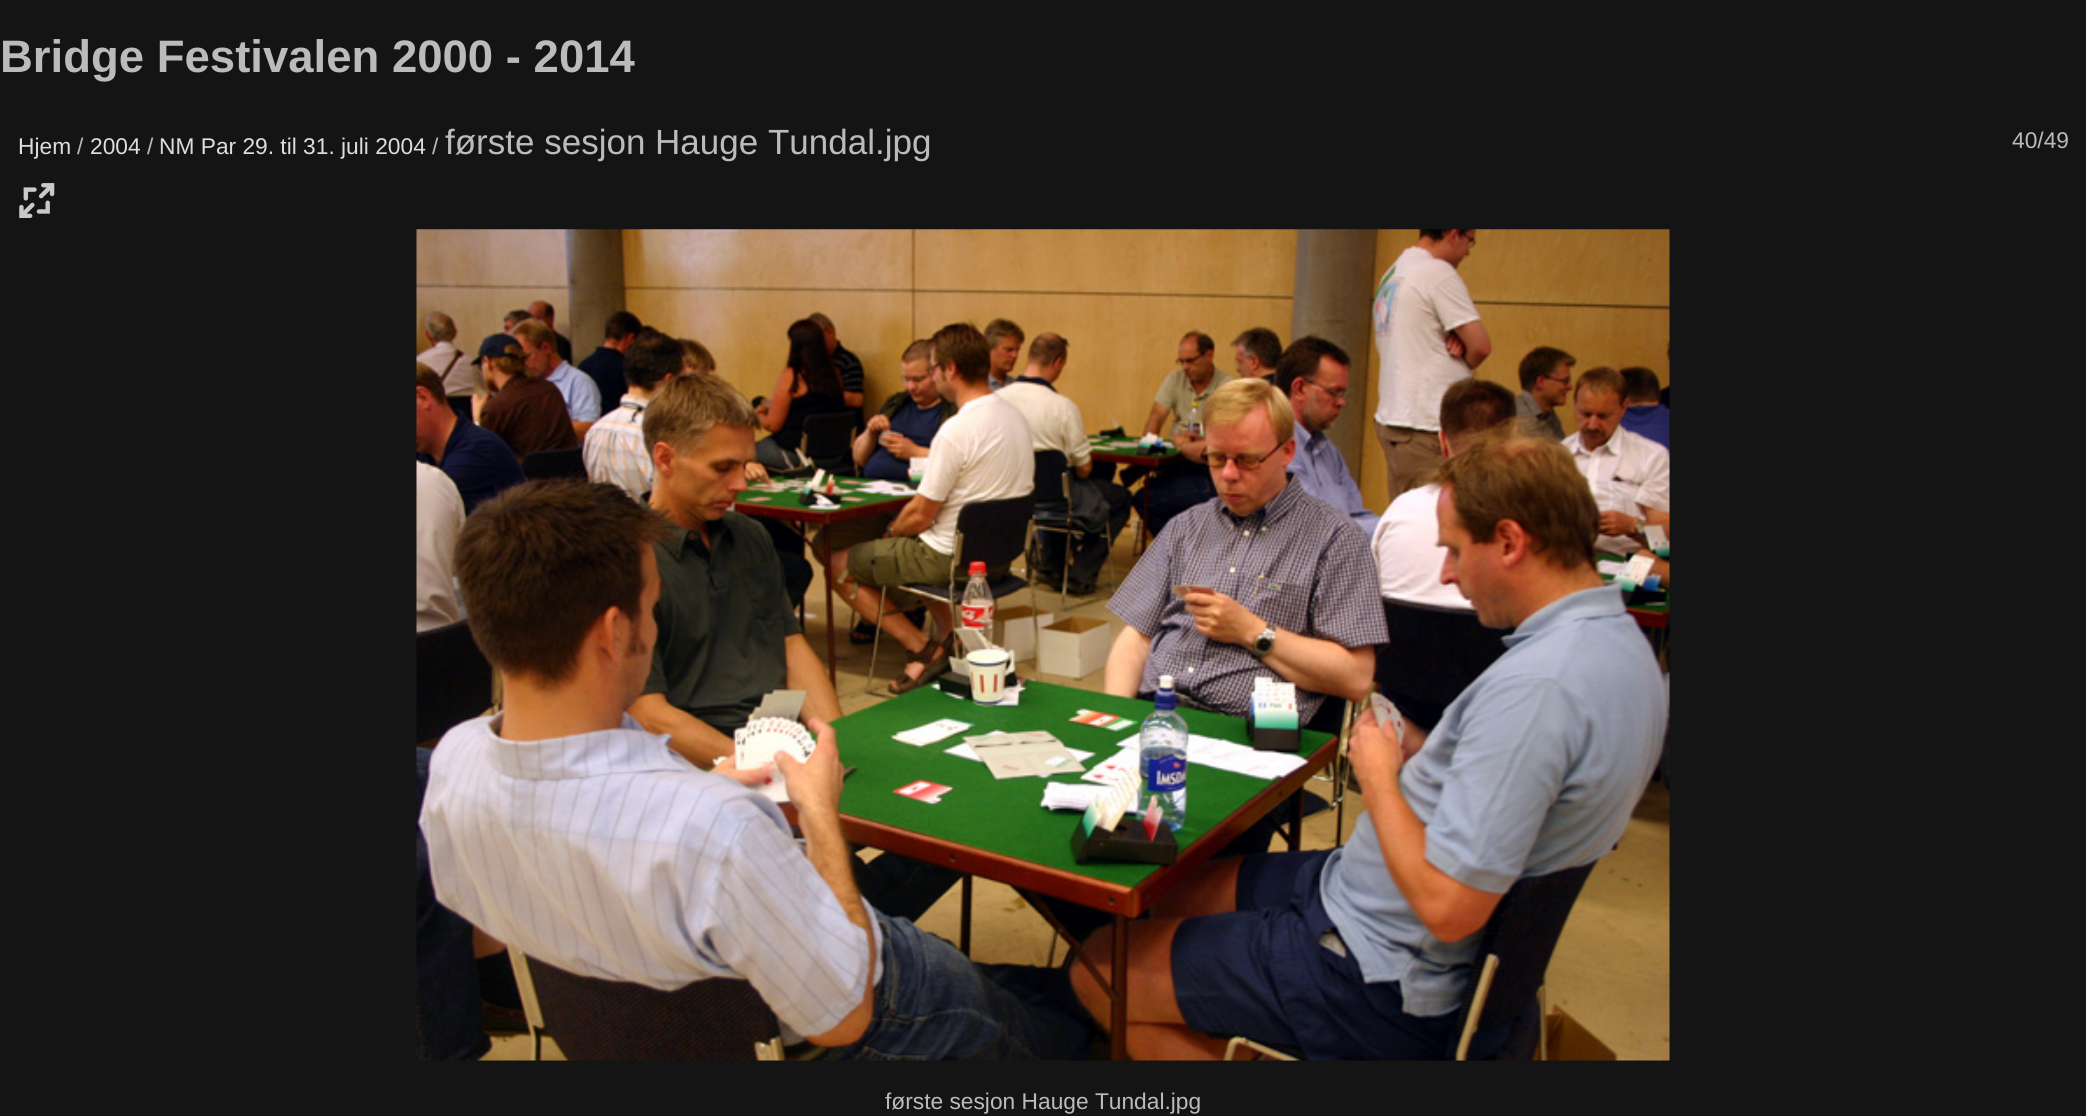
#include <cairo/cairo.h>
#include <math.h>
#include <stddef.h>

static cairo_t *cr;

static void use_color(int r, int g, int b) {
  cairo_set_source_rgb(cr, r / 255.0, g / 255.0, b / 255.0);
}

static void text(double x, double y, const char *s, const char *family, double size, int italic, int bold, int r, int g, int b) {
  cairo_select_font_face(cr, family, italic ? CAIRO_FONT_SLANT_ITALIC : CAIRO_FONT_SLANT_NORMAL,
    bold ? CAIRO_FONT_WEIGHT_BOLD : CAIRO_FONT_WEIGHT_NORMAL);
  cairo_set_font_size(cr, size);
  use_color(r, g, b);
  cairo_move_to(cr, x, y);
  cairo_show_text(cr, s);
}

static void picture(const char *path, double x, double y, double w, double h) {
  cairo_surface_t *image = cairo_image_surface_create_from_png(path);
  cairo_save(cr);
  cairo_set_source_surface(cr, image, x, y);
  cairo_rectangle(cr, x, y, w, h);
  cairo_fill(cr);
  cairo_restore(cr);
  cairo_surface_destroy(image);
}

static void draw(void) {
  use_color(20, 20, 20);
  cairo_paint(cr);
  picture("img_01.png", 19, 183, 36, 35);
  picture("img_02.png", 416, 229, 1254, 832);
  text(0, 72, "Bridge Festivalen 2000 - 2014", "Liberation Sans", 45.5, 0, 1, 187, 187, 187);
  text(18, 154, "Hjem", "Liberation Sans", 22.75, 0, 0, 221, 221, 221);
  text(77, 154, "/", "Liberation Sans", 22.75, 0, 0, 187, 187, 187);
  text(90, 154, "2004", "Liberation Sans", 22.75, 0, 0, 221, 221, 221);
  text(147, 154, "/", "Liberation Sans", 22.75, 0, 0, 187, 187, 187);
  text(159, 154, "NM Par 29. til 31. juli 2004", "Liberation Sans", 22.75, 0, 0, 221, 221, 221);
  text(432, 154, "/", "Liberation Sans", 22.75, 0, 0, 187, 187, 187);
  text(445, 154, "første sesjon Hauge Tundal.jpg", "Liberation Sans", 35, 0, 0, 187, 187, 187);
  text(2012, 148, "40/49", "Liberation Sans", 22.75, 0, 0, 187, 187, 187);
  text(885, 1109, "første sesjon Hauge Tundal.jpg", "Liberation Sans", 22.75, 0, 0, 187, 187, 187);
}

int main(void) {
  cairo_surface_t *surface = cairo_image_surface_create(CAIRO_FORMAT_RGB24, 2086, 1116);
  cr = cairo_create(surface);
  cairo_font_options_t *options = cairo_font_options_create();
  cairo_font_options_set_hint_metrics(options, CAIRO_HINT_METRICS_OFF);
  cairo_font_options_set_hint_style(options, CAIRO_HINT_STYLE_NONE);
  cairo_set_font_options(cr, options);
  cairo_set_miter_limit(cr, 4);
  draw();
  cairo_surface_write_to_png(surface, "out.png");
  cairo_font_options_destroy(options);
  cairo_destroy(cr);
  cairo_surface_destroy(surface);
  return 0;
}
